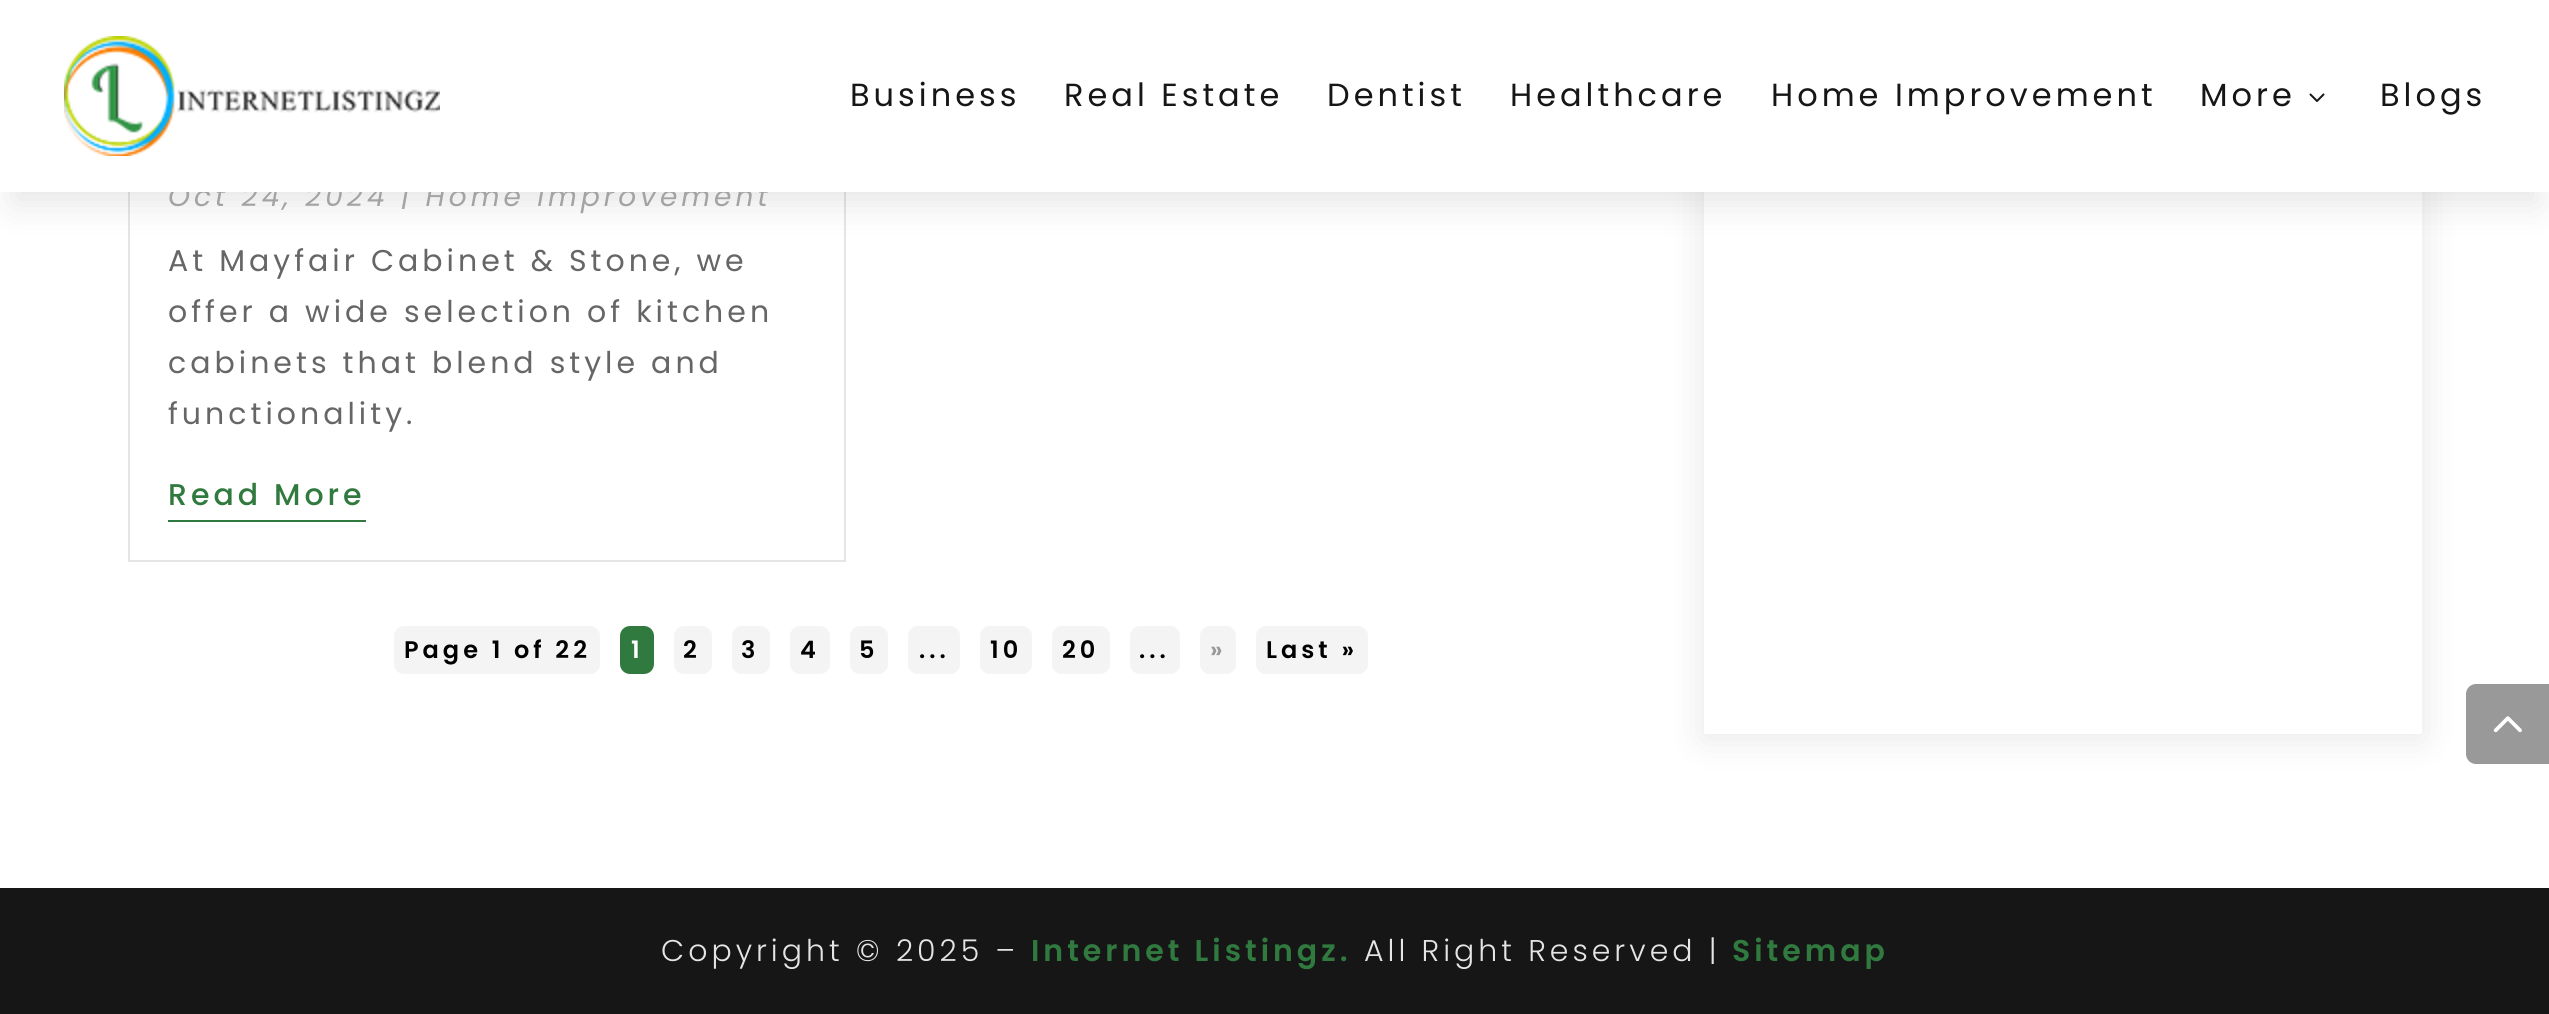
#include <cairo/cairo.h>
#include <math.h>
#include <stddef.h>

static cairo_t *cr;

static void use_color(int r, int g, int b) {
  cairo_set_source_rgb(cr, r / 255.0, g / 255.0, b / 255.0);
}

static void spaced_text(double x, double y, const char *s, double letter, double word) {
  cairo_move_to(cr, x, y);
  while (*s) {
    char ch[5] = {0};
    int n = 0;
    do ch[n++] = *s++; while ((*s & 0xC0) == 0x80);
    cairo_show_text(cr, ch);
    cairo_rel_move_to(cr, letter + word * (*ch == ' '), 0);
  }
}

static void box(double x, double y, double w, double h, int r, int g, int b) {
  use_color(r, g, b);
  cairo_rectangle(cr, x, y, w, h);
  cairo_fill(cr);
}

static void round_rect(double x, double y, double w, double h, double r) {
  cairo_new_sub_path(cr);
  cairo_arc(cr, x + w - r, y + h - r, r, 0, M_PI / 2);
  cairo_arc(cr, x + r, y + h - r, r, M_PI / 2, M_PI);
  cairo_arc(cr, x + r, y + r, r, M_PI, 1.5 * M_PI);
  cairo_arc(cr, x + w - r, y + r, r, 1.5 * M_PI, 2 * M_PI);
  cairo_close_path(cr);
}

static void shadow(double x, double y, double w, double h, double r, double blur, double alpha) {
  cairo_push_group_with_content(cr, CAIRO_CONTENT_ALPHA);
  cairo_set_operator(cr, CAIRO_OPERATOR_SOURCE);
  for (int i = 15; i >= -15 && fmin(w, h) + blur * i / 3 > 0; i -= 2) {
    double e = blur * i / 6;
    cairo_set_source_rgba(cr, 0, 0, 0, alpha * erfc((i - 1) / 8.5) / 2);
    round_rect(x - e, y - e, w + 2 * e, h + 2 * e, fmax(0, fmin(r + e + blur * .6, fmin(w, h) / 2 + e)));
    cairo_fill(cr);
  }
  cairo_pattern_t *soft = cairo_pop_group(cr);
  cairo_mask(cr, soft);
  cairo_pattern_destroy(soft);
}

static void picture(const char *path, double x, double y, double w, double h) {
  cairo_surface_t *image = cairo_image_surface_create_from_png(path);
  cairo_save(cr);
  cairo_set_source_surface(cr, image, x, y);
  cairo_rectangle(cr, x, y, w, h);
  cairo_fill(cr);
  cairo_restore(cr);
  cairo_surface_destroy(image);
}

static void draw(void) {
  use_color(255, 255, 255);
  cairo_paint(cr);
  cairo_rectangle(cr, 129, -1, 716, 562);
  use_color(229, 229, 229);
  cairo_stroke(cr);
  use_color(0, 0, 0);
  shadow(12, 36, 2526, 168, 0, 18, 0.1);
  box(168, 520, 198, 2, 48, 122, 63);
  use_color(244, 244, 244);
  round_rect(394, 626, 206, 48, 10);
  cairo_fill(cr);
  use_color(48, 122, 63);
  round_rect(620, 626, 34, 48, 10);
  cairo_fill(cr);
  use_color(244, 244, 244);
  round_rect(674, 626, 38, 48, 10);
  cairo_fill(cr);
  round_rect(732, 626, 38, 48, 10);
  cairo_fill(cr);
  round_rect(790, 626, 40, 48, 10);
  cairo_fill(cr);
  round_rect(850, 626, 38, 48, 10);
  cairo_fill(cr);
  round_rect(980, 626, 52, 48, 10);
  cairo_fill(cr);
  round_rect(1052, 626, 58, 48, 10);
  cairo_fill(cr);
  round_rect(1200, 626, 36, 48, 10);
  cairo_fill(cr);
  round_rect(1256, 626, 112, 48, 10);
  cairo_fill(cr);
  round_rect(908, 626, 52, 48, 10);
  cairo_fill(cr);
  round_rect(1130, 626, 50, 48, 10);
  cairo_fill(cr);
  cairo_save(cr);
  cairo_set_fill_rule(cr, CAIRO_FILL_RULE_EVEN_ODD);
  cairo_new_path(cr);
  cairo_move_to(cr, 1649, 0);
  cairo_line_to(cr, 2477, 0);
  cairo_line_to(cr, 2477, 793);
  cairo_line_to(cr, 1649, 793);
  cairo_close_path(cr);
  cairo_move_to(cr, 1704, -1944);
  cairo_line_to(cr, 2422, -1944);
  cairo_line_to(cr, 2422, 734);
  cairo_line_to(cr, 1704, 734);
  cairo_close_path(cr);
  cairo_clip(cr);
  use_color(0, 0, 0);
  shadow(1704, -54, 718, 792, 0, 18, 0.1);
  cairo_restore(cr);
  box(0, 888, 2549, 126, 22, 22, 22);
  use_color(153, 153, 153);
  cairo_new_path(cr);
  cairo_move_to(cr, 2476, 684);
  cairo_line_to(cr, 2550, 684);
  cairo_line_to(cr, 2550, 764);
  cairo_line_to(cr, 2476, 764);
  cairo_curve_to(cr, 2470.5, 764, 2466, 759.5, 2466, 754);
  cairo_line_to(cr, 2466, 694);
  cairo_curve_to(cr, 2466, 688.5, 2470.5, 684, 2476, 684);
  cairo_close_path(cr);
  cairo_fill(cr);
  picture("img_03.png", 2493, 716, 29, 17);
  cairo_select_font_face(cr, "Poppins", CAIRO_FONT_SLANT_ITALIC, CAIRO_FONT_WEIGHT_NORMAL);
  cairo_set_font_size(cr, 28);
  use_color(163, 163, 163);
  spaced_text(168, 206, "Oct 24, 2024 | Home Improvement", 4, 0);
  box(0, 0, 2549, 192, 255, 255, 255);
  cairo_select_font_face(cr, "Poppins", CAIRO_FONT_SLANT_NORMAL, CAIRO_FONT_WEIGHT_NORMAL);
  cairo_set_font_size(cr, 32);
  use_color(22, 22, 22);
  spaced_text(2380, 106, "Blogs", 4, 0);
  picture("img_02.png", 2309, 93, 16, 9);
  spaced_text(2200, 106, "More", 4, 0);
  spaced_text(1771, 106, "Home Improvement", 4, 0);
  spaced_text(1510, 106, "Healthcare", 4, 0);
  spaced_text(1327, 106, "Dentist", 4, 0);
  spaced_text(1064, 106, "Real Estate", 4, 0);
  spaced_text(850, 106, "Business", 4, 0);
  picture("img_01.png", 64, 36, 376, 120);
  cairo_set_font_size(cr, 30);
  use_color(102, 102, 102);
  spaced_text(168, 271, "At Mayfair Cabinet & Stone, we", 4, 0);
  spaced_text(168, 322, "offer a wide selection of kitchen", 4, 0);
  spaced_text(168, 373, "cabinets that blend style and", 4, 0);
  spaced_text(168, 424, "functionality.", 4, 0);
  cairo_select_font_face(cr, "Poppins Medium", CAIRO_FONT_SLANT_NORMAL, CAIRO_FONT_WEIGHT_NORMAL);
  use_color(48, 122, 63);
  spaced_text(168, 505, "Read More", 4, 0);
  cairo_select_font_face(cr, "Poppins SemiBold", CAIRO_FONT_SLANT_NORMAL, CAIRO_FONT_WEIGHT_NORMAL);
  cairo_set_font_size(cr, 24);
  use_color(0, 0, 0);
  spaced_text(404, 658, "Page 1 of 22", 4, 0);
  use_color(255, 255, 255);
  spaced_text(631, 658, "1", 4, 0);
  use_color(0, 0, 0);
  spaced_text(683, 658, "2", 4, 0);
  spaced_text(741, 658, "3", 4, 0);
  spaced_text(800, 658, "4", 4, 0);
  spaced_text(859, 658, "5", 4, 0);
  spaced_text(990, 658, "10", 4, 0);
  spaced_text(1062, 658, "20", 4, 0);
  use_color(153, 153, 153);
  spaced_text(1210, 658, "»", 4, 0);
  use_color(0, 0, 0);
  spaced_text(1266, 658, "Last »", 4, 0);
  spaced_text(919, 658, "...", 4, 0);
  spaced_text(1139, 658, "...", 4, 0);
  cairo_select_font_face(cr, "Poppins Light", CAIRO_FONT_SLANT_NORMAL, CAIRO_FONT_WEIGHT_NORMAL);
  cairo_set_font_size(cr, 30);
  use_color(229, 229, 229);
  spaced_text(661, 961, "Copyright © 2025 –", 4, 0);
  cairo_select_font_face(cr, "Poppins SemiBold", CAIRO_FONT_SLANT_NORMAL, CAIRO_FONT_WEIGHT_NORMAL);
  use_color(48, 122, 63);
  spaced_text(1031, 961, "Internet Listingz.", 4, 0);
  cairo_select_font_face(cr, "Poppins Light", CAIRO_FONT_SLANT_NORMAL, CAIRO_FONT_WEIGHT_NORMAL);
  use_color(229, 229, 229);
  spaced_text(1364, 961, "All Right Reserved |", 4, 0);
  cairo_select_font_face(cr, "Poppins SemiBold", CAIRO_FONT_SLANT_NORMAL, CAIRO_FONT_WEIGHT_NORMAL);
  use_color(48, 122, 63);
  spaced_text(1732, 961, "Sitemap", 4, 0);
}

int main(void) {
  cairo_surface_t *surface = cairo_image_surface_create(CAIRO_FORMAT_RGB24, 2549, 1014);
  cr = cairo_create(surface);
  cairo_font_options_t *options = cairo_font_options_create();
  cairo_font_options_set_hint_metrics(options, CAIRO_HINT_METRICS_OFF);
  cairo_font_options_set_hint_style(options, CAIRO_HINT_STYLE_NONE);
  cairo_set_font_options(cr, options);
  cairo_set_miter_limit(cr, 4);
  draw();
  cairo_surface_write_to_png(surface, "out.png");
  cairo_font_options_destroy(options);
  cairo_destroy(cr);
  cairo_surface_destroy(surface);
  return 0;
}
